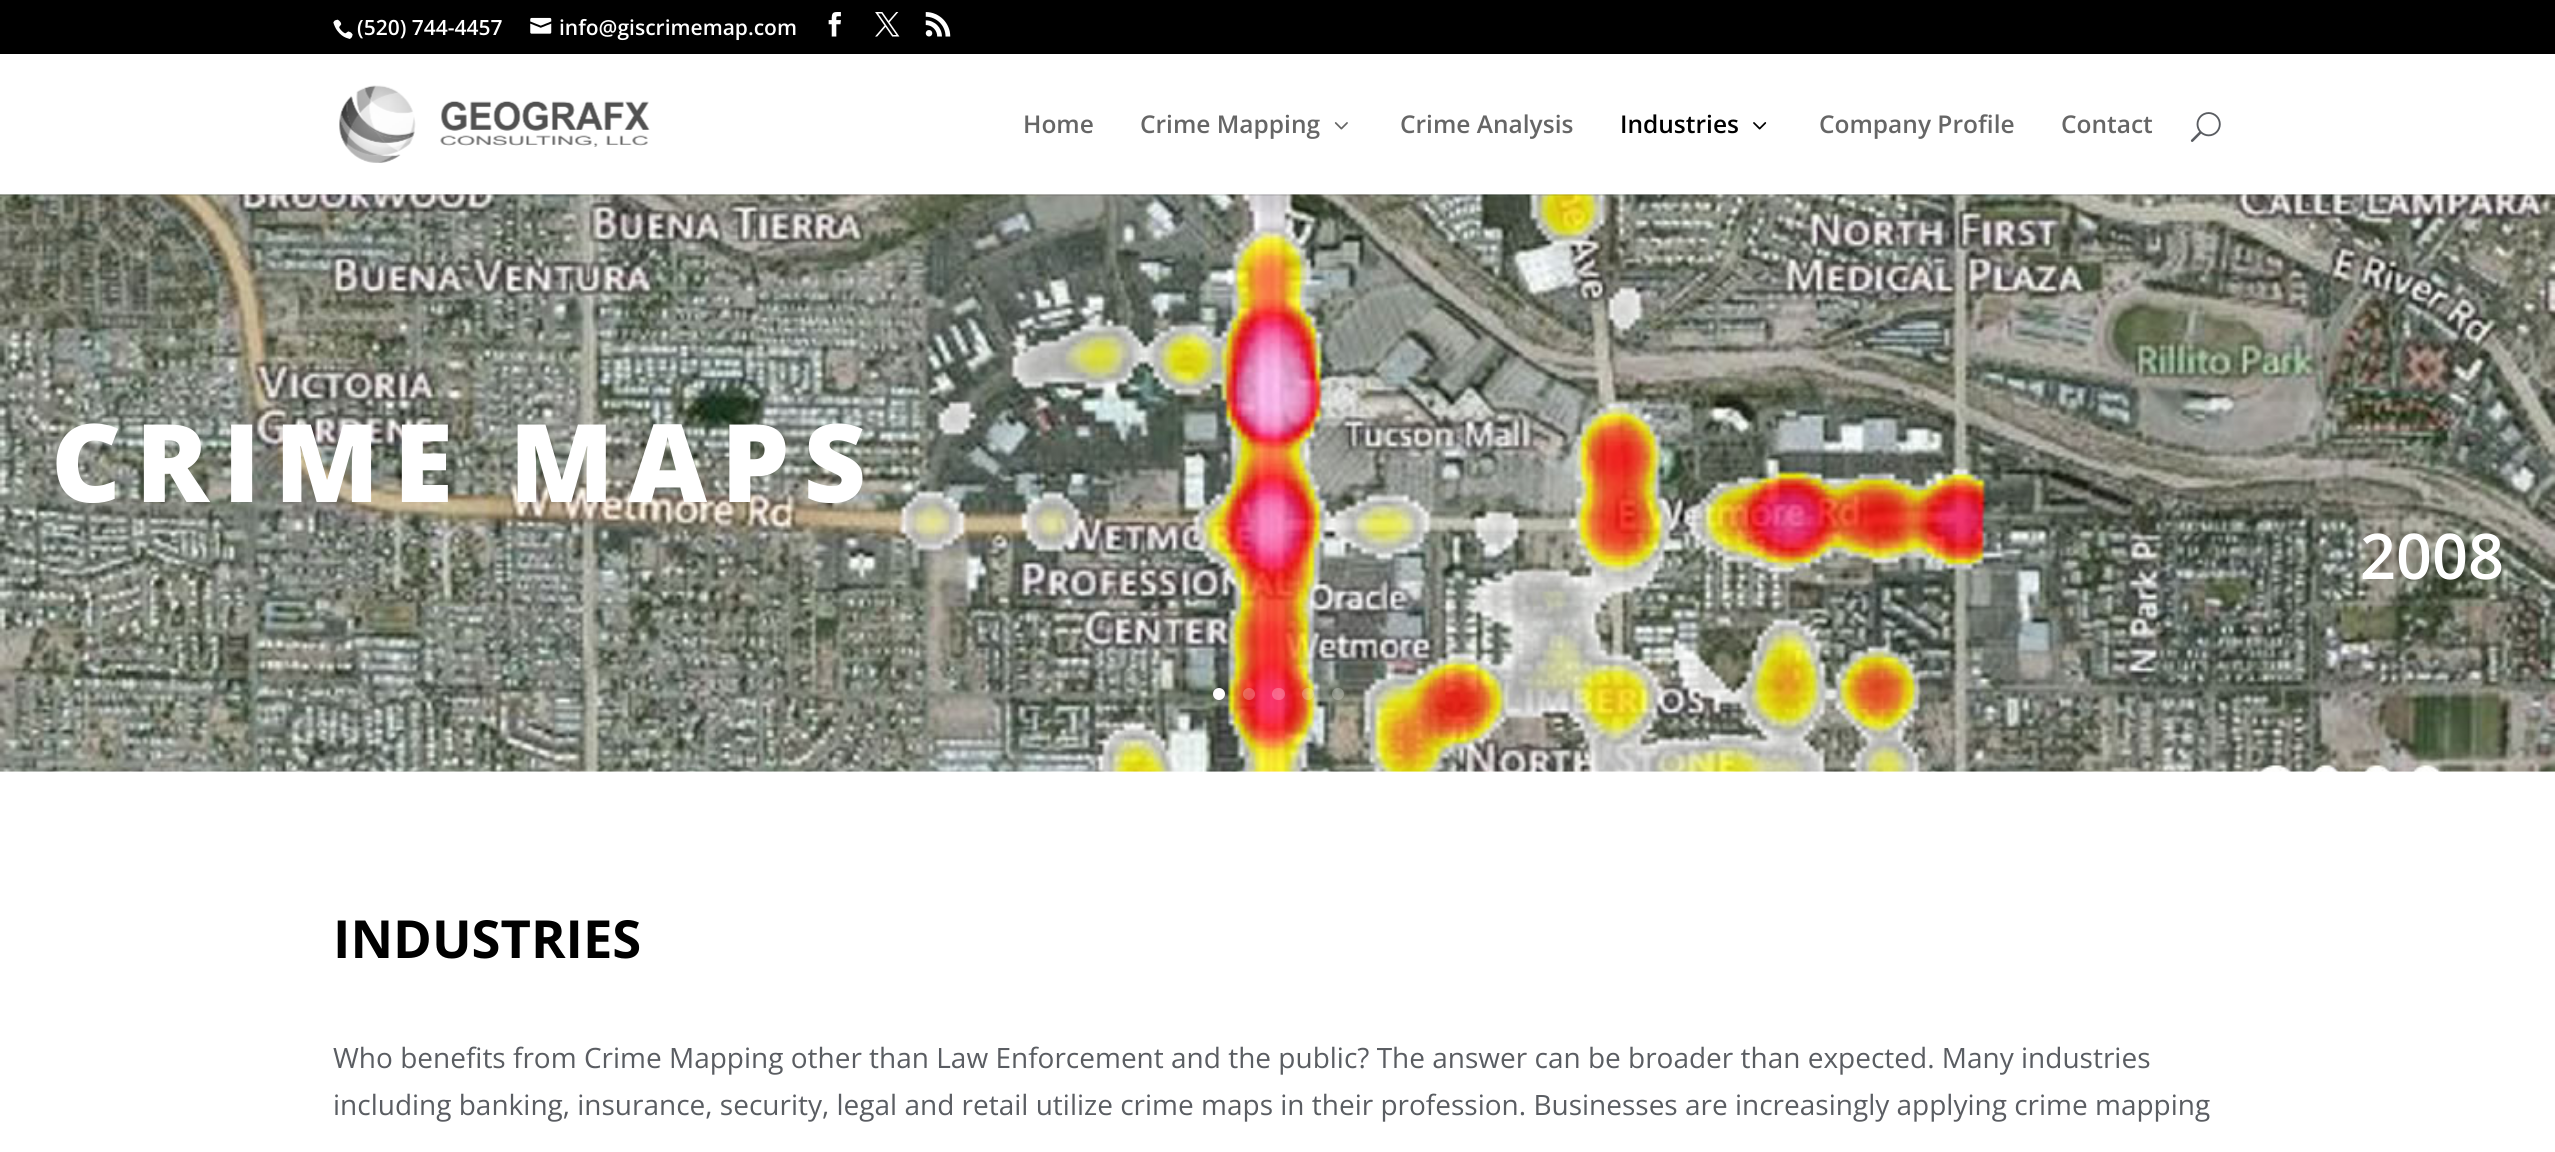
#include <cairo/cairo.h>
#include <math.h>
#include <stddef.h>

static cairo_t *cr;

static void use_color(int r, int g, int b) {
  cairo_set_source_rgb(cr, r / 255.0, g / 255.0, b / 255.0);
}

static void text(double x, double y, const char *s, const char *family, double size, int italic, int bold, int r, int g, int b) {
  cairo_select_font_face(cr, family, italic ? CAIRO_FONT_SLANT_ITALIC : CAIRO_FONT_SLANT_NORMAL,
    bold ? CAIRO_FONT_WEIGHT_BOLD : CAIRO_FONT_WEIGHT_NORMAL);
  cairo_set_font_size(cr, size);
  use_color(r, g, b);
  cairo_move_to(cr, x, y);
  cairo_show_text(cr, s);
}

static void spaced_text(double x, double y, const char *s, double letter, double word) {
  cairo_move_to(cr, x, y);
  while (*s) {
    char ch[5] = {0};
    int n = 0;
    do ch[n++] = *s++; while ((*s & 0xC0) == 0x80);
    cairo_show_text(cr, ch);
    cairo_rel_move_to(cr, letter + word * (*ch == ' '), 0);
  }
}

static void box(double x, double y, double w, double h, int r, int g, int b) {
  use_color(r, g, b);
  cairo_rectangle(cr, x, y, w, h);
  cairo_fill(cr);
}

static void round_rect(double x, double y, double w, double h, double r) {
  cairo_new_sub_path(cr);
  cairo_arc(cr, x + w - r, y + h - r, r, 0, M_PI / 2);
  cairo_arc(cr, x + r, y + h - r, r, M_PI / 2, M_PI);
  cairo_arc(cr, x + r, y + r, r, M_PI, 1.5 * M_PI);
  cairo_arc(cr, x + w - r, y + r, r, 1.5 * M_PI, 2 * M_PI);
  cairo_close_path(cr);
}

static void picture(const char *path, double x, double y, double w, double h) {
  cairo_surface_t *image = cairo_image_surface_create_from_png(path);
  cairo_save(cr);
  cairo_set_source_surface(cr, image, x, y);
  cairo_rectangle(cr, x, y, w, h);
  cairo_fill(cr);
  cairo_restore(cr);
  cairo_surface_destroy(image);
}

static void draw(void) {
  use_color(255, 255, 255);
  cairo_paint(cr);
  box(0, 0, 2555, 54, 0, 0, 0);
  picture("img_01.png", 333, 19, 20, 20);
  picture("img_02.png", 530, 17, 22, 17);
  picture("img_03.png", 828, 12, 13, 25);
  picture("img_04.png", 875, 12, 25, 25);
  picture("img_05.png", 925, 12, 26, 25);
  picture("img_10.png", 0, 194, 2555, 578);
  cairo_set_source_rgba(cr, 0, 0, 0, 0.1);
  cairo_rectangle(cr, 0, 194, 2555, 2);
  cairo_fill(cr);
  picture("img_06.png", 339, 85, 311, 78);
  picture("img_07.png", 1334, 122, 14, 8);
  picture("img_08.png", 1753, 122, 14, 8);
  picture("img_09.png", 2190, 112, 31, 30);
  use_color(255, 255, 255);
  cairo_arc(cr, 1219, 694, 6, 0, 2 * M_PI);
  cairo_fill(cr);
  cairo_set_source_rgba(cr, 1, 1, 1, 0.25);
  cairo_arc(cr, 1249, 694, 6, 0, 2 * M_PI);
  cairo_fill(cr);
  round_rect(1272, 688, 13, 12, 6);
  cairo_fill(cr);
  cairo_arc(cr, 1308, 694, 6, 0, 2 * M_PI);
  cairo_fill(cr);
  cairo_arc(cr, 1338, 694, 6, 0, 2 * M_PI);
  cairo_fill(cr);
  text(357, 35, "(520) 744-4457", "Open Sans SemiBold", 21, 0, 0, 255, 255, 255);
  text(559, 35, "info@giscrimemap.com", "Open Sans SemiBold", 21, 0, 0, 255, 255, 255);
  text(1023, 133, "Home", "Open Sans SemiBold", 24.5, 0, 0, 102, 102, 102);
  text(1140, 133, "Crime Mapping", "Open Sans SemiBold", 24.5, 0, 0, 102, 102, 102);
  text(1400, 133, "Crime Analysis", "Open Sans SemiBold", 24.5, 0, 0, 102, 102, 102);
  text(1620, 133, "Industries", "Open Sans SemiBold", 24.5, 0, 0, 0, 0, 0);
  text(1819, 133, "Company Profile", "Open Sans SemiBold", 24.5, 0, 0, 102, 102, 102);
  text(2061, 133, "Contact", "Open Sans SemiBold", 24.5, 0, 0, 102, 102, 102);
  cairo_select_font_face(cr, "Open Sans ExtraBold", CAIRO_FONT_SLANT_NORMAL, CAIRO_FONT_WEIGHT_NORMAL);
  cairo_set_font_size(cr, 108.5);
  use_color(255, 255, 255);
  spaced_text(51, 502, "CRIME MAPS", 14, 0);
  text(2360, 579, "2008", "Open Sans SemiBold", 63, 0, 0, 255, 255, 255);
  text(333, 958, "INDUSTRIES", "Open Sans", 52.5, 0, 1, 0, 0, 0);
  text(333, 1068, "Who benefits from Crime Mapping other than Law Enforcement and the public? The answer can be broader than expected. Many industries", "Open Sans", 28, 0, 0, 90, 93, 98);
  text(333, 1115, "including banking, insurance, security, legal and retail utilize crime maps in their profession. Businesses are increasingly applying crime mapping", "Open Sans", 28, 0, 0, 90, 93, 98);
}

int main(void) {
  cairo_surface_t *surface = cairo_image_surface_create(CAIRO_FORMAT_RGB24, 2555, 1152);
  cr = cairo_create(surface);
  cairo_font_options_t *options = cairo_font_options_create();
  cairo_font_options_set_hint_metrics(options, CAIRO_HINT_METRICS_OFF);
  cairo_font_options_set_hint_style(options, CAIRO_HINT_STYLE_NONE);
  cairo_set_font_options(cr, options);
  cairo_set_miter_limit(cr, 4);
  draw();
  cairo_surface_write_to_png(surface, "out.png");
  cairo_font_options_destroy(options);
  cairo_destroy(cr);
  cairo_surface_destroy(surface);
  return 0;
}
